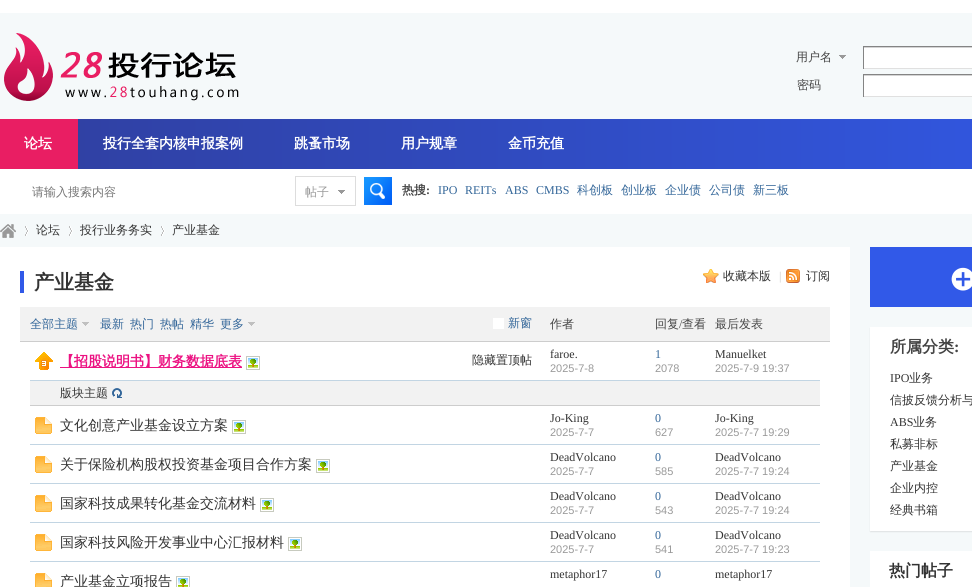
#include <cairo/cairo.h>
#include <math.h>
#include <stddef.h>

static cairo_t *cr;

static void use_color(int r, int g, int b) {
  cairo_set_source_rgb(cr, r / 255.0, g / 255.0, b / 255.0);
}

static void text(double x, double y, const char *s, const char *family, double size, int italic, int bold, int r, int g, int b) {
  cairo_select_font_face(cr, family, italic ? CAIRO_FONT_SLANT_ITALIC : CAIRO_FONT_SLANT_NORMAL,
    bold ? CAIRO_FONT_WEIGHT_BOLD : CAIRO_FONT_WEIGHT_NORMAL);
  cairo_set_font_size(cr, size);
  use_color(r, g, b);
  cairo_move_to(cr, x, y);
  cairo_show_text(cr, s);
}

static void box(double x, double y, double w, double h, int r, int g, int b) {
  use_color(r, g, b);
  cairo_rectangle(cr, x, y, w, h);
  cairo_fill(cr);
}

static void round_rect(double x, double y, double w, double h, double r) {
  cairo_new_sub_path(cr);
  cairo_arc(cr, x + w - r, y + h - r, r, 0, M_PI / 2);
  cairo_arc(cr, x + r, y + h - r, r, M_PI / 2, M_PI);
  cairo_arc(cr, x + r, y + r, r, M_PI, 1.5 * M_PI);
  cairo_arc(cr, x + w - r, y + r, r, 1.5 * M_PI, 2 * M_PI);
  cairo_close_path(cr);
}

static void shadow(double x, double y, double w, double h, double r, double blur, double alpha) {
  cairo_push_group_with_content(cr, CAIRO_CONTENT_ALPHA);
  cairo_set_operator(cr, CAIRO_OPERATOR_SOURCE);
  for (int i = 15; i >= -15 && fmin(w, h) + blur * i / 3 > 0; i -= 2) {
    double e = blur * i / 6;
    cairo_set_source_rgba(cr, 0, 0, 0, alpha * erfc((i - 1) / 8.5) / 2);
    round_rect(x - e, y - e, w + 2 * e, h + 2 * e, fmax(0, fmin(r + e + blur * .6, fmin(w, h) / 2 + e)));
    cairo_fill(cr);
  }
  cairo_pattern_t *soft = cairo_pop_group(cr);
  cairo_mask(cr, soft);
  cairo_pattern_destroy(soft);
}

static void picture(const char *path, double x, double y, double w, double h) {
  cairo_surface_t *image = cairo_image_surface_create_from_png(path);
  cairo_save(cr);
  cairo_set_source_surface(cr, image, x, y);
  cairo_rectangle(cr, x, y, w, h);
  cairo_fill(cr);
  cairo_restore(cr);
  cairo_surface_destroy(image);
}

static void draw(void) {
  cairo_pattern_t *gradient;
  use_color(245, 249, 250);
  cairo_paint(cr);
  box(0, 0, 972, 13, 255, 255, 255);
  picture("img_01.png", 4, 33, 235, 68);
  picture("img_02.png", 839, 55, 7, 4);
  box(864, 48, 108, 20, 255, 255, 255);
  box(863, 47, 109, 1, 212, 212, 212);
  box(863, 46, 109, 1, 132, 132, 132);
  box(863, 68, 109, 1, 224, 224, 224);
  box(863, 46, 1, 23, 132, 132, 132);
  box(864, 76, 108, 20, 255, 255, 255);
  box(863, 75, 109, 1, 212, 212, 212);
  box(863, 74, 109, 1, 132, 132, 132);
  box(863, 96, 109, 1, 224, 224, 224);
  box(863, 74, 1, 23, 132, 132, 132);
  gradient = cairo_pattern_create_linear(0, 144, 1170, 144);
  cairo_pattern_add_color_stop_rgba(gradient, 0, 0.188, 0.247, 0.624, 1);
  cairo_pattern_add_color_stop_rgba(gradient, 1, 0.192, 0.353, 0.914, 1);
  cairo_set_source(cr, gradient);
  cairo_pattern_destroy(gradient);
  cairo_rectangle(cr, 78, 119, 894, 50);
  cairo_fill(cr);
  box(0, 119, 78, 50, 233, 30, 99);
  box(0, 169, 972, 45, 255, 255, 255);
  picture("img_03.png", 295, 176, 61, 30);
  picture("img_04.png", 364, 177, 28, 28);
  picture("img_05.png", 0, 224, 16, 14);
  picture("img_06.png", 25, 226, 4, 10);
  picture("img_06.png", 69, 226, 4, 10);
  picture("img_06.png", 161, 226, 4, 10);
  box(0, 247, 850, 340, 255, 255, 255);
  box(20, 271, 4, 22, 49, 89, 232);
  picture("img_07.png", 703, 269, 16, 14);
  picture("img_08.png", 786, 269, 14, 14);
  box(20, 307, 810, 34, 242, 242, 242);
  box(20, 341, 810, 1, 205, 205, 205);
  picture("img_09.png", 82, 322, 7, 4);
  picture("img_09.png", 248, 322, 7, 4);
  box(493, 318, 11, 11, 255, 255, 255);
  box(30, 380, 790, 1, 194, 213, 227);
  picture("img_10.png", 35, 352, 18, 18);
  box(60, 367, 182, 1, 236, 18, 130);
  picture("img_11.png", 246, 356, 14, 14);
  box(30, 381, 790, 24, 242, 242, 242);
  box(30, 405, 790, 1, 205, 205, 205);
  picture("img_12.png", 112, 388, 10, 10);
  box(30, 444, 790, 1, 194, 213, 227);
  picture("img_13.png", 35, 417, 17, 17);
  picture("img_11.png", 232, 420, 14, 14);
  box(30, 483, 790, 1, 194, 213, 227);
  picture("img_13.png", 35, 456, 17, 17);
  picture("img_11.png", 316, 459, 14, 14);
  box(30, 522, 790, 1, 194, 213, 227);
  picture("img_13.png", 35, 495, 17, 17);
  picture("img_11.png", 260, 498, 14, 14);
  box(30, 561, 790, 1, 194, 213, 227);
  picture("img_13.png", 35, 534, 17, 17);
  picture("img_11.png", 288, 537, 14, 14);
  picture("img_14.png", 35, 573, 17, 14);
  picture("img_15.png", 176, 576, 14, 11);
  box(870, 247, 102, 60, 49, 89, 232);
  picture("img_16.png", 951, 267, 21, 24);
  use_color(0, 0, 0);
  shadow(870, 328, 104, 204, 0, 0.5, 0.08);
  box(870, 327, 102, 204, 255, 255, 255);
  box(870, 551, 102, 36, 255, 255, 255);
  text(796, 61, "用户名", "WenQuanYi Zen Hei Medium", 12, 0, 0, 68, 68, 68);
  text(797, 89, "密码", "WenQuanYi Zen Hei Medium", 12, 0, 0, 68, 68, 68);
  text(24, 148, "论坛", "WenQuanYi Zen Hei", 14, 0, 1, 255, 255, 255);
  text(103, 148, "投行全套内核申报案例", "WenQuanYi Zen Hei", 14, 0, 1, 255, 255, 255);
  text(294, 148, "跳蚤市场", "WenQuanYi Zen Hei", 14, 0, 1, 255, 255, 255);
  text(401, 148, "用户规章", "WenQuanYi Zen Hei", 14, 0, 1, 255, 255, 255);
  text(508, 148, "金币充值", "WenQuanYi Zen Hei", 14, 0, 1, 255, 255, 255);
  text(32, 196, "请输入搜索内容", "WenQuanYi Zen Hei Medium", 12, 0, 0, 117, 117, 117);
  text(305, 196, "帖子", "WenQuanYi Zen Hei Medium", 12, 0, 0, 153, 153, 153);
  text(402, 194, "热搜", "WenQuanYi Zen Hei", 12, 0, 1, 68, 68, 68);
  text(426, 194, ":", "Liberation Serif", 12, 0, 1, 68, 68, 68);
  text(438, 194, "IPO", "Liberation Serif", 12, 0, 0, 51, 102, 153);
  text(465, 194, "REITs", "Liberation Serif", 12, 0, 0, 51, 102, 153);
  text(505, 194, "ABS", "Liberation Serif", 12, 0, 0, 51, 102, 153);
  text(536, 194, "CMBS", "Liberation Serif", 12, 0, 0, 51, 102, 153);
  text(577, 194, "科创板", "WenQuanYi Zen Hei Medium", 12, 0, 0, 51, 102, 153);
  text(621, 194, "创业板", "WenQuanYi Zen Hei Medium", 12, 0, 0, 51, 102, 153);
  text(665, 194, "企业债", "WenQuanYi Zen Hei Medium", 12, 0, 0, 51, 102, 153);
  text(709, 194, "公司债", "WenQuanYi Zen Hei Medium", 12, 0, 0, 51, 102, 153);
  text(753, 194, "新三板", "WenQuanYi Zen Hei Medium", 12, 0, 0, 51, 102, 153);
  text(36, 234, "论坛", "WenQuanYi Zen Hei Medium", 12, 0, 0, 51, 51, 51);
  text(80, 234, "投行业务务实", "WenQuanYi Zen Hei Medium", 12, 0, 0, 51, 51, 51);
  text(172, 234, "产业基金", "WenQuanYi Zen Hei Medium", 12, 0, 0, 51, 51, 51);
  text(34, 289, "产业基金", "WenQuanYi Zen Hei", 20, 0, 1, 51, 51, 51);
  text(723, 280, "收藏本版", "WenQuanYi Zen Hei Medium", 12, 0, 0, 51, 51, 51);
  text(779, 280, "|", "Liberation Serif", 12, 0, 0, 204, 204, 204);
  text(806, 280, "订阅", "WenQuanYi Zen Hei Medium", 12, 0, 0, 51, 51, 51);
  text(30, 328, "全部主题", "WenQuanYi Zen Hei Medium", 12, 0, 0, 51, 102, 153);
  text(100, 328, "最新", "WenQuanYi Zen Hei Medium", 12, 0, 0, 51, 102, 153);
  text(130, 328, "热门", "WenQuanYi Zen Hei Medium", 12, 0, 0, 51, 102, 153);
  text(160, 328, "热帖", "WenQuanYi Zen Hei Medium", 12, 0, 0, 51, 102, 153);
  text(190, 328, "精华", "WenQuanYi Zen Hei Medium", 12, 0, 0, 51, 102, 153);
  text(220, 328, "更多", "WenQuanYi Zen Hei Medium", 12, 0, 0, 51, 102, 153);
  text(508, 327, "新窗", "WenQuanYi Zen Hei Medium", 12, 0, 0, 51, 102, 153);
  text(550, 328, "作者", "WenQuanYi Zen Hei Medium", 12, 0, 0, 68, 68, 68);
  text(655, 328, "回复", "WenQuanYi Zen Hei Medium", 12, 0, 0, 68, 68, 68);
  text(679, 328, "/", "Liberation Serif", 12, 0, 0, 68, 68, 68);
  text(682, 328, "查看", "WenQuanYi Zen Hei Medium", 12, 0, 0, 68, 68, 68);
  text(715, 328, "最后发表", "WenQuanYi Zen Hei Medium", 12, 0, 0, 68, 68, 68);
  text(550, 358, "faroe.", "Liberation Serif", 12, 0, 0, 51, 51, 51);
  text(550, 372, "2025-7-8", "Liberation Sans", 11, 0, 0, 153, 153, 153);
  text(655, 358, "1", "Liberation Serif", 12, 0, 0, 51, 102, 153);
  text(655, 372, "2078", "Liberation Sans", 11, 0, 0, 153, 153, 153);
  text(715, 358, "Manuelket", "Liberation Serif", 12, 0, 0, 51, 51, 51);
  text(715, 372, "2025-7-9 19:37", "Liberation Sans", 11, 0, 0, 153, 153, 153);
  text(60, 366, "【招股说明书】财务数据底表", "WenQuanYi Zen Hei", 14, 0, 1, 236, 18, 130);
  text(472, 364, "隐藏置顶帖", "WenQuanYi Zen Hei Medium", 12, 0, 0, 51, 51, 51);
  text(60, 397, "版块主题", "WenQuanYi Zen Hei Medium", 12, 0, 0, 51, 51, 51);
  text(550, 422, "Jo-King", "Liberation Serif", 12, 0, 0, 51, 51, 51);
  text(550, 436, "2025-7-7", "Liberation Sans", 11, 0, 0, 153, 153, 153);
  text(655, 422, "0", "Liberation Serif", 12, 0, 0, 51, 102, 153);
  text(655, 436, "627", "Liberation Sans", 11, 0, 0, 153, 153, 153);
  text(715, 422, "Jo-King", "Liberation Serif", 12, 0, 0, 51, 51, 51);
  text(715, 436, "2025-7-7 19:29", "Liberation Sans", 11, 0, 0, 153, 153, 153);
  text(60, 430, "文化创意产业基金设立方案", "WenQuanYi Zen Hei Medium", 14, 0, 0, 51, 51, 51);
  text(550, 461, "DeadVolcano", "Liberation Serif", 12, 0, 0, 51, 51, 51);
  text(550, 475, "2025-7-7", "Liberation Sans", 11, 0, 0, 153, 153, 153);
  text(655, 461, "0", "Liberation Serif", 12, 0, 0, 51, 102, 153);
  text(655, 475, "585", "Liberation Sans", 11, 0, 0, 153, 153, 153);
  text(715, 461, "DeadVolcano", "Liberation Serif", 12, 0, 0, 51, 51, 51);
  text(715, 475, "2025-7-7 19:24", "Liberation Sans", 11, 0, 0, 153, 153, 153);
  text(60, 469, "关于保险机构股权投资基金项目合作方案", "WenQuanYi Zen Hei Medium", 14, 0, 0, 51, 51, 51);
  text(550, 500, "DeadVolcano", "Liberation Serif", 12, 0, 0, 51, 51, 51);
  text(550, 514, "2025-7-7", "Liberation Sans", 11, 0, 0, 153, 153, 153);
  text(655, 500, "0", "Liberation Serif", 12, 0, 0, 51, 102, 153);
  text(655, 514, "543", "Liberation Sans", 11, 0, 0, 153, 153, 153);
  text(715, 500, "DeadVolcano", "Liberation Serif", 12, 0, 0, 51, 51, 51);
  text(715, 514, "2025-7-7 19:24", "Liberation Sans", 11, 0, 0, 153, 153, 153);
  text(60, 508, "国家科技成果转化基金交流材料", "WenQuanYi Zen Hei Medium", 14, 0, 0, 51, 51, 51);
  text(550, 539, "DeadVolcano", "Liberation Serif", 12, 0, 0, 51, 51, 51);
  text(550, 553, "2025-7-7", "Liberation Sans", 11, 0, 0, 153, 153, 153);
  text(655, 539, "0", "Liberation Serif", 12, 0, 0, 51, 102, 153);
  text(655, 553, "541", "Liberation Sans", 11, 0, 0, 153, 153, 153);
  text(715, 539, "DeadVolcano", "Liberation Serif", 12, 0, 0, 51, 51, 51);
  text(715, 553, "2025-7-7 19:23", "Liberation Sans", 11, 0, 0, 153, 153, 153);
  text(60, 547, "国家科技风险开发事业中心汇报材料", "WenQuanYi Zen Hei Medium", 14, 0, 0, 51, 51, 51);
  text(60, 586, "产业基金立项报告", "WenQuanYi Zen Hei Medium", 14, 0, 0, 51, 51, 51);
  text(550, 578, "metaphor17", "Liberation Serif", 12, 0, 0, 51, 51, 51);
  text(655, 578, "0", "Liberation Serif", 12, 0, 0, 51, 102, 153);
  text(715, 578, "metaphor17", "Liberation Serif", 12, 0, 0, 51, 51, 51);
  text(890, 352, "所属分类", "WenQuanYi Zen Hei", 16, 0, 1, 68, 68, 68);
  text(954, 352, ":", "Liberation Serif", 16, 0, 1, 68, 68, 68);
  text(890, 382, "IPO", "Liberation Serif", 12, 0, 0, 51, 51, 51);
  text(909, 382, "业务", "WenQuanYi Zen Hei Medium", 12, 0, 0, 51, 51, 51);
  text(890, 404, "信披反馈分析与", "WenQuanYi Zen Hei Medium", 12, 0, 0, 51, 51, 51);
  text(890, 426, "ABS", "Liberation Serif", 12, 0, 0, 51, 51, 51);
  text(913, 426, "业务", "WenQuanYi Zen Hei Medium", 12, 0, 0, 51, 51, 51);
  text(890, 448, "私募非标", "WenQuanYi Zen Hei Medium", 12, 0, 0, 51, 51, 51);
  text(890, 470, "产业基金", "WenQuanYi Zen Hei Medium", 12, 0, 0, 51, 51, 51);
  text(890, 492, "企业内控", "WenQuanYi Zen Hei Medium", 12, 0, 0, 51, 51, 51);
  text(890, 514, "经典书箱", "WenQuanYi Zen Hei Medium", 12, 0, 0, 51, 51, 51);
  text(889, 576, "热门帖子", "WenQuanYi Zen Hei", 16, 0, 1, 51, 51, 51);
}

int main(void) {
  cairo_surface_t *surface = cairo_image_surface_create(CAIRO_FORMAT_RGB24, 972, 587);
  cr = cairo_create(surface);
  cairo_font_options_t *options = cairo_font_options_create();
  cairo_font_options_set_hint_metrics(options, CAIRO_HINT_METRICS_OFF);
  cairo_font_options_set_hint_style(options, CAIRO_HINT_STYLE_NONE);
  cairo_set_font_options(cr, options);
  cairo_set_miter_limit(cr, 4);
  draw();
  cairo_surface_write_to_png(surface, "out.png");
  cairo_font_options_destroy(options);
  cairo_destroy(cr);
  cairo_surface_destroy(surface);
  return 0;
}
